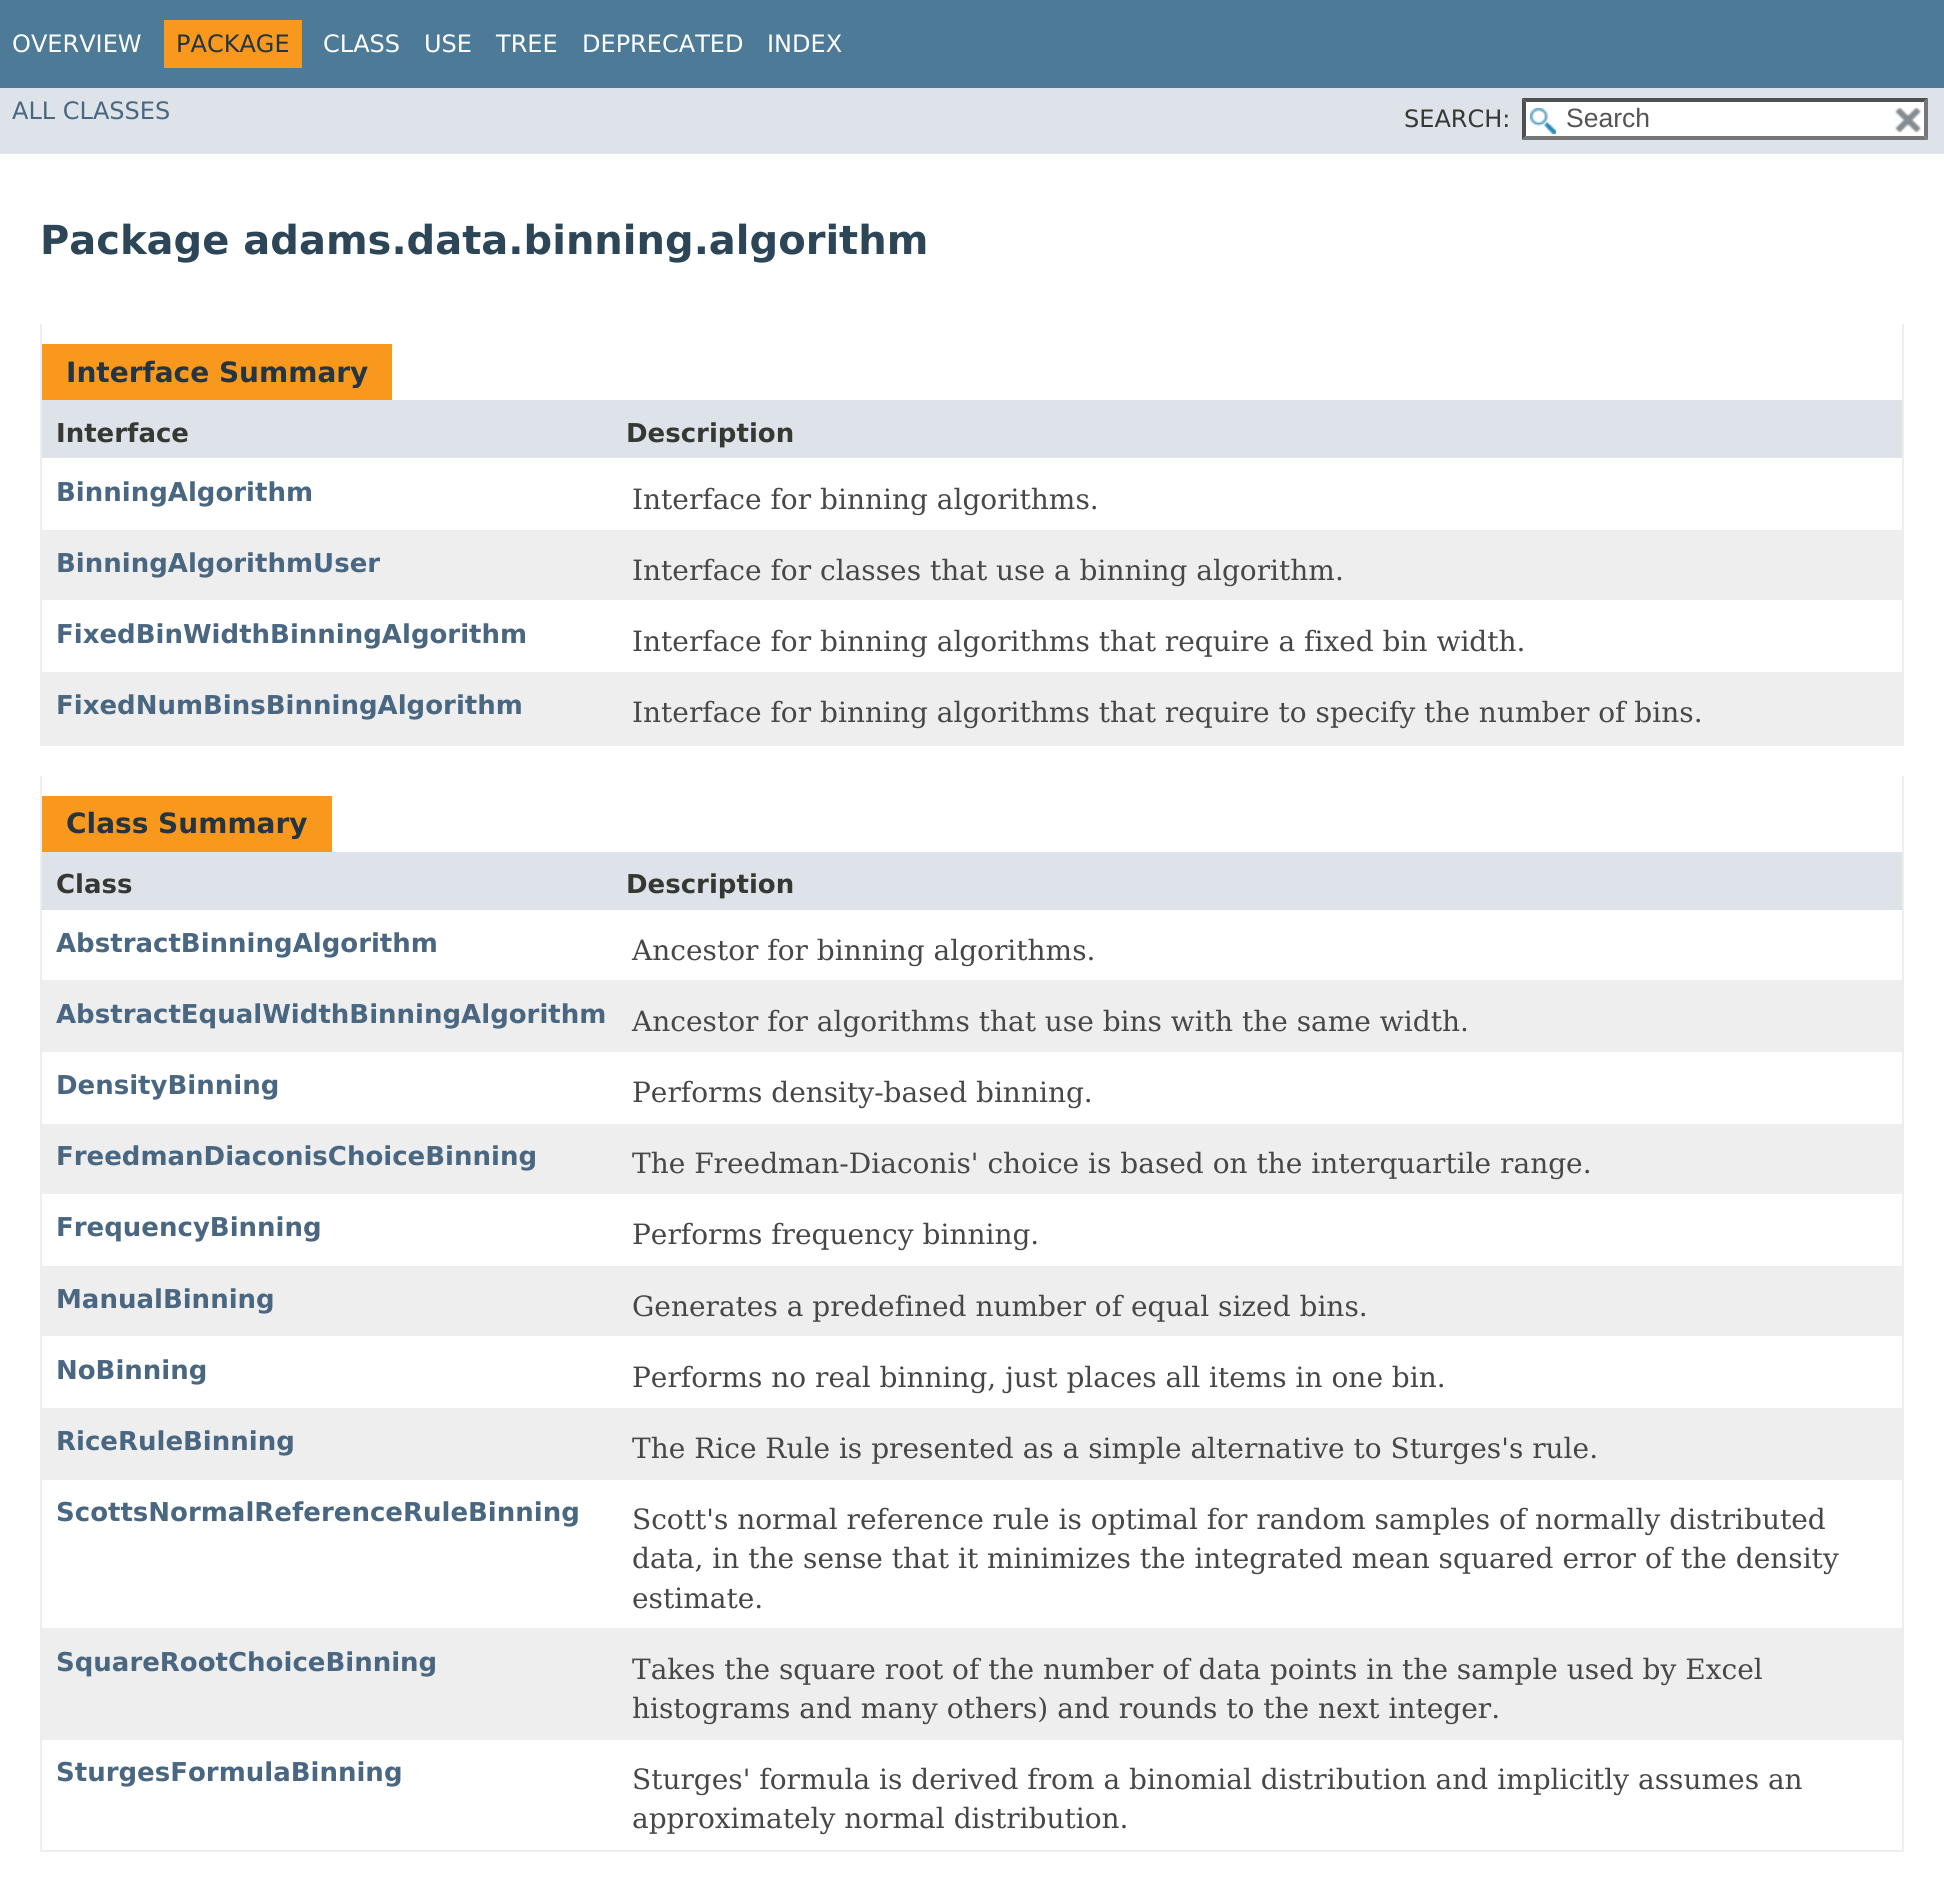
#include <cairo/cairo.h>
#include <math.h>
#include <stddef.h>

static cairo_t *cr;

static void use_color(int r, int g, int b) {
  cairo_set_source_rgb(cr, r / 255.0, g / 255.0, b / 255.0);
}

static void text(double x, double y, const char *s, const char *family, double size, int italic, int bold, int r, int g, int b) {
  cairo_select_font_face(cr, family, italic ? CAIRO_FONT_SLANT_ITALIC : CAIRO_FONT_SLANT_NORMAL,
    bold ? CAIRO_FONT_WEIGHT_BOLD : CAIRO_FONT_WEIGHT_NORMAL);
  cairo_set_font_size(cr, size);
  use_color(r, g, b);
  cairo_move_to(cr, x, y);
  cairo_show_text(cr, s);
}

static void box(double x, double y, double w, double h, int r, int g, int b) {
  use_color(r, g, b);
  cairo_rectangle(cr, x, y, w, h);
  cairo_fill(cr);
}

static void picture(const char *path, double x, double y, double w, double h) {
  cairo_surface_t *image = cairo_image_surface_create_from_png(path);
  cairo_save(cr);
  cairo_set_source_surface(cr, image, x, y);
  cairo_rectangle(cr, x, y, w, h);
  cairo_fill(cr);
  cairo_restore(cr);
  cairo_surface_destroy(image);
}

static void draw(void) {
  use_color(255, 255, 255);
  cairo_paint(cr);
  box(0, 0, 1944, 88, 77, 122, 151);
  box(164, 20, 138, 48, 248, 152, 29);
  box(0, 88, 1944, 66, 222, 227, 233);
  box(1522, 98, 406, 42, 255, 255, 255);
  picture("img_01.png", 1530, 108, 26, 26);
  use_color(79, 79, 79);
  cairo_new_path(cr);
  cairo_move_to(cr, 1522, 98);
  cairo_line_to(cr, 1928, 98);
  cairo_line_to(cr, 1924, 102);
  cairo_line_to(cr, 1526, 102);
  cairo_close_path(cr);
  cairo_fill(cr);
  use_color(118, 118, 118);
  cairo_new_path(cr);
  cairo_move_to(cr, 1928, 98);
  cairo_line_to(cr, 1928, 140);
  cairo_line_to(cr, 1924, 136);
  cairo_line_to(cr, 1924, 102);
  cairo_close_path(cr);
  cairo_fill(cr);
  cairo_new_path(cr);
  cairo_move_to(cr, 1928, 140);
  cairo_line_to(cr, 1522, 140);
  cairo_line_to(cr, 1526, 136);
  cairo_line_to(cr, 1924, 136);
  cairo_close_path(cr);
  cairo_fill(cr);
  use_color(79, 79, 79);
  cairo_new_path(cr);
  cairo_move_to(cr, 1522, 140);
  cairo_line_to(cr, 1522, 98);
  cairo_line_to(cr, 1526, 102);
  cairo_line_to(cr, 1526, 136);
  cairo_close_path(cr);
  cairo_fill(cr);
  picture("img_02.png", 1894, 107, 27, 26);
  box(1902, 324, 2, 422, 238, 238, 238);
  box(40, 744, 1864, 2, 238, 238, 238);
  box(40, 324, 2, 422, 238, 238, 238);
  box(42, 344, 350, 56, 248, 152, 29);
  box(42, 400, 1860, 58, 222, 227, 233);
  box(42, 530, 1860, 70, 238, 238, 239);
  box(42, 672, 1860, 72, 238, 238, 239);
  box(1902, 776, 2, 1076, 238, 238, 238);
  box(40, 1850, 1864, 2, 238, 238, 238);
  box(40, 776, 2, 1076, 238, 238, 238);
  box(42, 796, 290, 56, 248, 152, 29);
  box(42, 852, 1860, 58, 222, 227, 233);
  box(42, 980, 1860, 72, 238, 238, 239);
  box(42, 1124, 1860, 70, 238, 238, 239);
  box(42, 1266, 1860, 70, 238, 238, 239);
  box(42, 1408, 1860, 72, 238, 238, 239);
  box(42, 1628, 1860, 112, 238, 238, 239);
  text(12, 52, "OVERVIEW", "DejaVu Sans", 24, 0, 0, 255, 255, 255);
  text(176, 52, "PACKAGE", "DejaVu Sans", 24, 0, 0, 37, 52, 65);
  text(323, 52, "CLASS", "DejaVu Sans", 24, 0, 0, 255, 255, 255);
  text(424, 52, "USE", "DejaVu Sans", 24, 0, 0, 255, 255, 255);
  text(496, 52, "TREE", "DejaVu Sans", 24, 0, 0, 255, 255, 255);
  text(582, 52, "DEPRECATED", "DejaVu Sans", 24, 0, 0, 255, 255, 255);
  text(767, 52, "INDEX", "DejaVu Sans", 24, 0, 0, 255, 255, 255);
  text(12, 119, "ALL CLASSES", "DejaVu Sans", 24, 0, 0, 74, 103, 130);
  text(1404, 127, "SEARCH:", "DejaVu Sans", 24, 0, 0, 53, 56, 51);
  text(1566, 127, "Search", "Liberation Sans", 26.5, 0, 0, 84, 84, 84);
  text(40, 254, "Package adams.data.binning.algorithm", "DejaVu Sans", 40, 0, 1, 44, 69, 87);
  text(66, 382, "Interface Summary", "DejaVu Sans", 28, 0, 1, 37, 52, 65);
  text(56, 442, "Interface", "DejaVu Sans", 26, 0, 1, 53, 56, 51);
  text(626, 442, "Description", "DejaVu Sans", 26, 0, 1, 53, 56, 51);
  text(56, 501, "BinningAlgorithm", "DejaVu Sans", 26, 0, 1, 74, 103, 130);
  text(632, 509, "Interface for binning algorithms.", "DejaVu Serif", 28, 0, 0, 71, 71, 71);
  text(56, 572, "BinningAlgorithmUser", "DejaVu Sans", 26, 0, 1, 74, 103, 130);
  text(632, 580, "Interface for classes that use a binning algorithm.", "DejaVu Serif", 28, 0, 0, 71, 71, 71);
  text(56, 643, "FixedBinWidthBinningAlgorithm", "DejaVu Sans", 26, 0, 1, 74, 103, 130);
  text(632, 651, "Interface for binning algorithms that require a fixed bin width.", "DejaVu Serif", 28, 0, 0, 71, 71, 71);
  text(56, 714, "FixedNumBinsBinningAlgorithm", "DejaVu Sans", 26, 0, 1, 74, 103, 130);
  text(632, 722, "Interface for binning algorithms that require to specify the number of bins.", "DejaVu Serif", 28, 0, 0, 71, 71, 71);
  text(66, 833, "Class Summary", "DejaVu Sans", 28, 0, 1, 37, 52, 65);
  text(56, 893, "Class", "DejaVu Sans", 26, 0, 1, 53, 56, 51);
  text(626, 893, "Description", "DejaVu Sans", 26, 0, 1, 53, 56, 51);
  text(56, 952, "AbstractBinningAlgorithm", "DejaVu Sans", 26, 0, 1, 74, 103, 130);
  text(632, 960, "Ancestor for binning algorithms.", "DejaVu Serif", 28, 0, 0, 71, 71, 71);
  text(56, 1023, "AbstractEqualWidthBinningAlgorithm", "DejaVu Sans", 26, 0, 1, 74, 103, 130);
  text(632, 1031, "Ancestor for algorithms that use bins with the same width.", "DejaVu Serif", 28, 0, 0, 71, 71, 71);
  text(56, 1094, "DensityBinning", "DejaVu Sans", 26, 0, 1, 74, 103, 130);
  text(632, 1102, "Performs density-based binning.", "DejaVu Serif", 28, 0, 0, 71, 71, 71);
  text(56, 1165, "FreedmanDiaconisChoiceBinning", "DejaVu Sans", 26, 0, 1, 74, 103, 130);
  text(632, 1173, "The Freedman-Diaconis' choice is based on the interquartile range.", "DejaVu Serif", 28, 0, 0, 71, 71, 71);
  text(56, 1236, "FrequencyBinning", "DejaVu Sans", 26, 0, 1, 74, 103, 130);
  text(632, 1244, "Performs frequency binning.", "DejaVu Serif", 28, 0, 0, 71, 71, 71);
  text(56, 1308, "ManualBinning", "DejaVu Sans", 26, 0, 1, 74, 103, 130);
  text(632, 1316, "Generates a predefined number of equal sized bins.", "DejaVu Serif", 28, 0, 0, 71, 71, 71);
  text(56, 1379, "NoBinning", "DejaVu Sans", 26, 0, 1, 74, 103, 130);
  text(632, 1387, "Performs no real binning, just places all items in one bin.", "DejaVu Serif", 28, 0, 0, 71, 71, 71);
  text(56, 1450, "RiceRuleBinning", "DejaVu Sans", 26, 0, 1, 74, 103, 130);
  text(632, 1458, "The Rice Rule is presented as a simple alternative to Sturges's rule.", "DejaVu Serif", 28, 0, 0, 71, 71, 71);
  text(56, 1521, "ScottsNormalReferenceRuleBinning", "DejaVu Sans", 26, 0, 1, 74, 103, 130);
  text(632, 1529, "Scott's normal reference rule is optimal for random samples of normally distributed", "DejaVu Serif", 28, 0, 0, 71, 71, 71);
  text(632, 1568, "data, in the sense that it minimizes the integrated mean squared error of the density", "DejaVu Serif", 28, 0, 0, 71, 71, 71);
  text(632, 1608, "estimate.", "DejaVu Serif", 28, 0, 0, 71, 71, 71);
  text(56, 1671, "SquareRootChoiceBinning", "DejaVu Sans", 26, 0, 1, 74, 103, 130);
  text(632, 1679, "Takes the square root of the number of data points in the sample used by Excel", "DejaVu Serif", 28, 0, 0, 71, 71, 71);
  text(632, 1718, "histograms and many others) and rounds to the next integer.", "DejaVu Serif", 28, 0, 0, 71, 71, 71);
  text(56, 1781, "SturgesFormulaBinning", "DejaVu Sans", 26, 0, 1, 74, 103, 130);
  text(632, 1789, "Sturges' formula is derived from a binomial distribution and implicitly assumes an", "DejaVu Serif", 28, 0, 0, 71, 71, 71);
  text(632, 1828, "approximately normal distribution.", "DejaVu Serif", 28, 0, 0, 71, 71, 71);
}

int main(void) {
  cairo_surface_t *surface = cairo_image_surface_create(CAIRO_FORMAT_RGB24, 1944, 1903);
  cr = cairo_create(surface);
  cairo_font_options_t *options = cairo_font_options_create();
  cairo_font_options_set_hint_metrics(options, CAIRO_HINT_METRICS_OFF);
  cairo_font_options_set_hint_style(options, CAIRO_HINT_STYLE_NONE);
  cairo_set_font_options(cr, options);
  cairo_set_miter_limit(cr, 4);
  draw();
  cairo_surface_write_to_png(surface, "out.png");
  cairo_font_options_destroy(options);
  cairo_destroy(cr);
  cairo_surface_destroy(surface);
  return 0;
}
